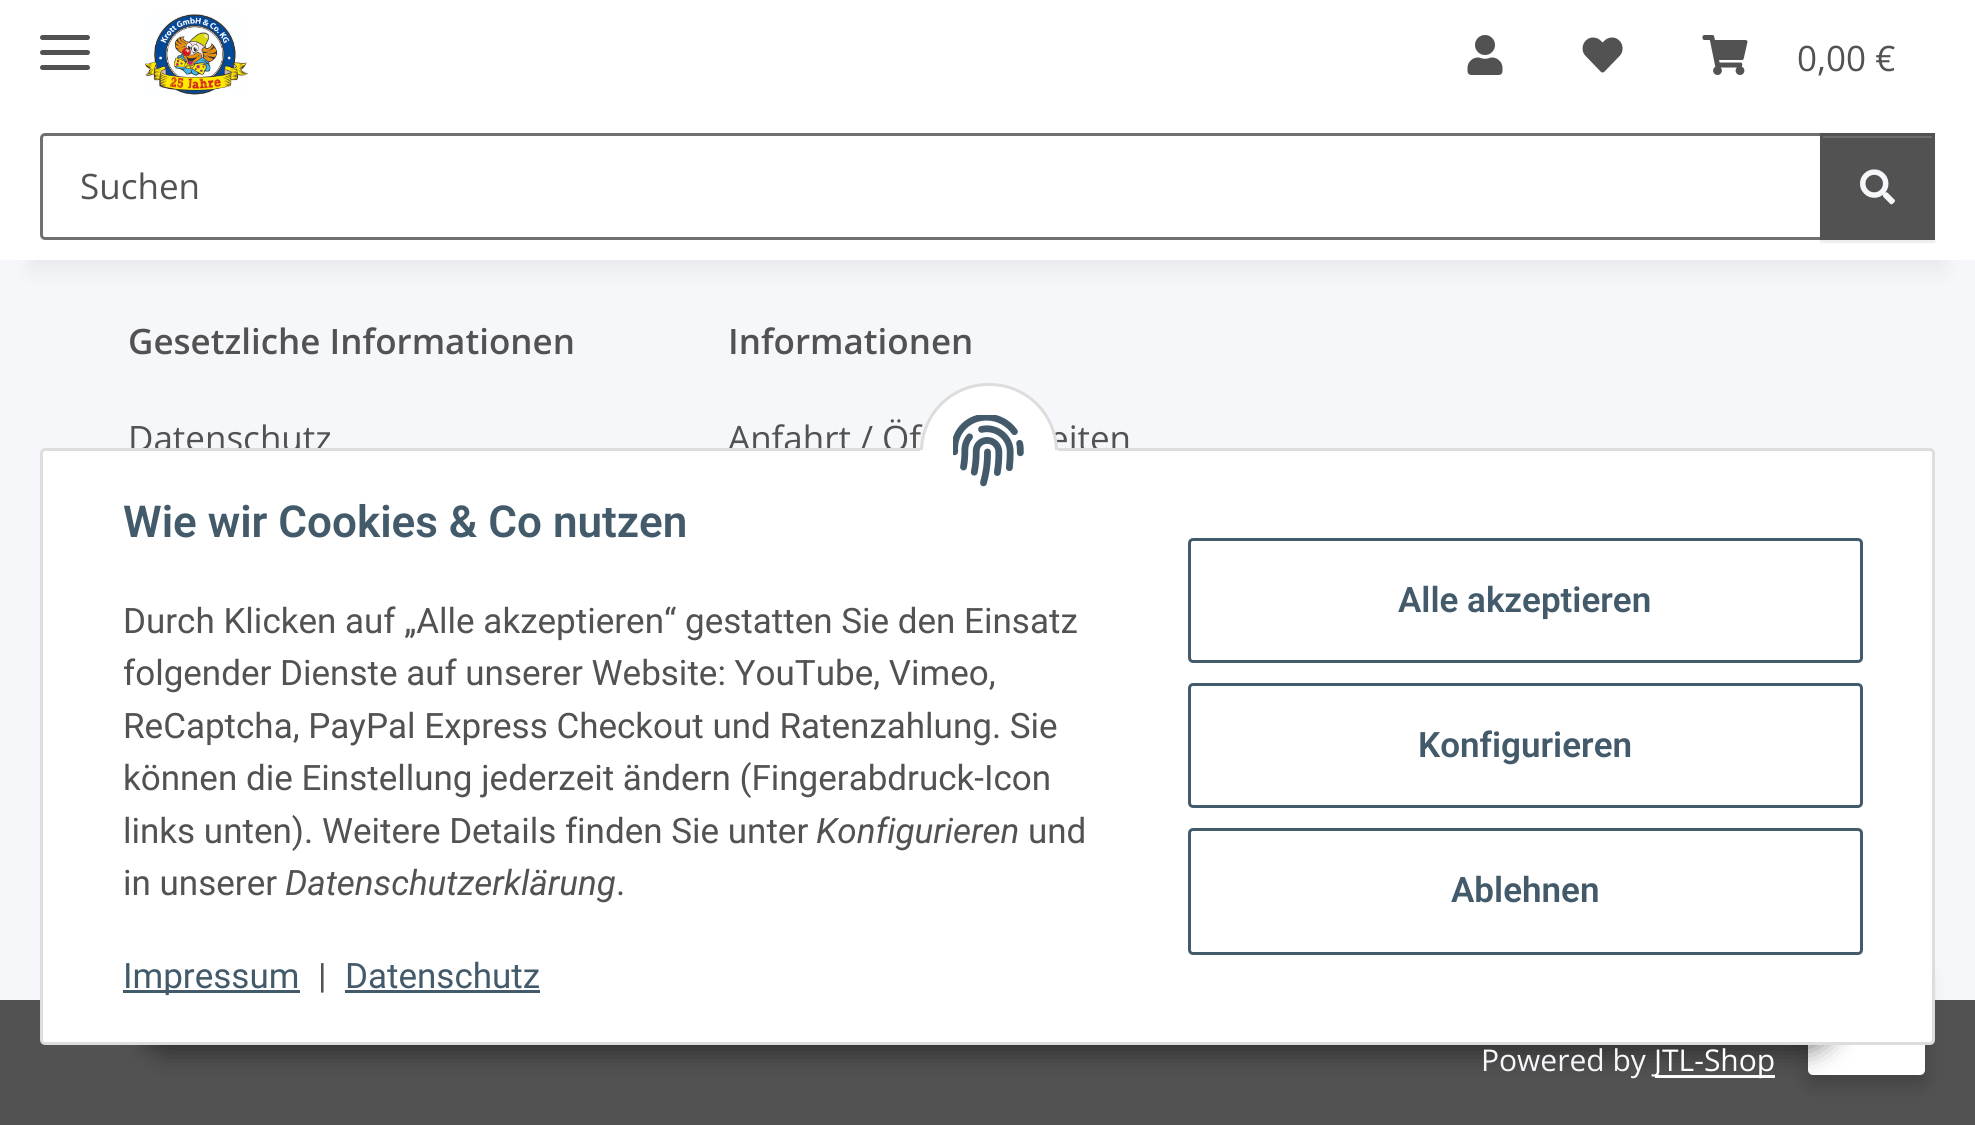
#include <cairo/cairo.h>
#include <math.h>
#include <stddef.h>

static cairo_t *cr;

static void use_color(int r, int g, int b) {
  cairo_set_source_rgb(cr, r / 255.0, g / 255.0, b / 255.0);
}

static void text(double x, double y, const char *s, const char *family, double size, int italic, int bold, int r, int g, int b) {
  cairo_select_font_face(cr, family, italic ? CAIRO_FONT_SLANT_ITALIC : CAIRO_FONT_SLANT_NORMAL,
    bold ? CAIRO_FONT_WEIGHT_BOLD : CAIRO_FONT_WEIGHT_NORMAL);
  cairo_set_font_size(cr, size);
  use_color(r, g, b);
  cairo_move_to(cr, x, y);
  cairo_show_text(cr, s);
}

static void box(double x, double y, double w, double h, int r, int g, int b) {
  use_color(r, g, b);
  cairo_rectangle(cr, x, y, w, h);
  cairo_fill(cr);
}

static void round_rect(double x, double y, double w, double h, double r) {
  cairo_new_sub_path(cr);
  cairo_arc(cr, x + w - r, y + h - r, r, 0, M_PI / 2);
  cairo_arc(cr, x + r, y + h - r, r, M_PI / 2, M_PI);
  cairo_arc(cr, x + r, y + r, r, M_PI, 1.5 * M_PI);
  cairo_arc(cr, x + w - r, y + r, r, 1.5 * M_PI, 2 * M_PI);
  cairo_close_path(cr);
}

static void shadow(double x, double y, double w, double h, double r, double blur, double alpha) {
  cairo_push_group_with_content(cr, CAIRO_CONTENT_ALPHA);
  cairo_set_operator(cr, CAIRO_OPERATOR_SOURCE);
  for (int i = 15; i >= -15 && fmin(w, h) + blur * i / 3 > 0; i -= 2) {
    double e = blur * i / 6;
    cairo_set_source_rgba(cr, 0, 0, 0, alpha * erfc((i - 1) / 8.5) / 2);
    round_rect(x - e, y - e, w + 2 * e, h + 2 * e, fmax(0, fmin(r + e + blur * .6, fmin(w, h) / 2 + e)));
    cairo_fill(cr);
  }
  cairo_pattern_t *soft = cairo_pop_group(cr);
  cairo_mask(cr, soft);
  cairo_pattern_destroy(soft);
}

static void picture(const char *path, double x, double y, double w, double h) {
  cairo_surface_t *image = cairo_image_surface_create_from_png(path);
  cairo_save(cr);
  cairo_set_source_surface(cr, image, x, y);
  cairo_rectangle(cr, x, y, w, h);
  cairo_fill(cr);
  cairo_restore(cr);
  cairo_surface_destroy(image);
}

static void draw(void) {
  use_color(245, 247, 250);
  cairo_paint(cr);
  use_color(0, 0, 0);
  shadow(30, 70, 1915, 200, 0, 11, 0.06);
  box(0, 0, 1975, 260, 255, 255, 255);
  use_color(82, 82, 82);
  round_rect(40, 50, 50, 5, 2.5);
  cairo_fill(cr);
  round_rect(40, 35, 50, 5, 2.5);
  cairo_fill(cr);
  round_rect(40, 65, 50, 5, 2.5);
  cairo_fill(cr);
  picture("img_01.png", 145, 14, 103, 81);
  picture("img_02.png", 1467, 35, 36, 40);
  picture("img_03.png", 1582, 37, 41, 36);
  picture("img_04.png", 1702, 35, 46, 40);
  cairo_new_path(cr);
  cairo_move_to(cr, 45, 134.5);
  cairo_line_to(cr, 1821.5, 134.5);
  cairo_line_to(cr, 1821.5, 238.5);
  cairo_line_to(cr, 45, 238.5);
  cairo_curve_to(cr, 43, 238.5, 41.5, 237, 41.5, 235);
  cairo_line_to(cr, 41.5, 138);
  cairo_curve_to(cr, 41.5, 136, 43, 134.5, 45, 134.5);
  cairo_close_path(cr);
  use_color(112, 112, 112);
  cairo_set_line_width(cr, 3);
  cairo_stroke(cr);
  use_color(0, 0, 0);
  shadow(1820, 135, 115, 108, 0, 1, 0.07);
  box(1823, 138, 109, 99, 82, 82, 82);
  box(1823, 136, 110, 2, 108, 108, 108);
  cairo_rectangle(cr, 1821.5, 134.5, 112, 104);
  use_color(82, 82, 82);
  cairo_stroke(cr);
  picture("img_05.png", 1860, 169, 35, 36);
  box(0, 1000, 1975, 125, 82, 82, 82);
  box(1655, 1075, 120, 3, 255, 255, 255);
  use_color(0, 0, 0);
  shadow(1808, 975, 117, 110, 5, 10, 0.2);
  use_color(255, 255, 255);
  round_rect(1808, 965, 117, 110, 5);
  cairo_fill(cr);
  use_color(0, 0, 0);
  shadow(138, 973, 1700, 80, 40, 12.5, 0.45);
  text(1797, 71, "0,00 €", "Open Sans", 35, 0, 0, 82, 82, 82);
  text(80, 199, "Suchen", "Open Sans", 35, 0, 0, 82, 82, 82);
  text(128, 354, "Gesetzliche Informationen", "Open Sans SemiBold", 35, 0, 0, 82, 82, 82);
  text(128, 451, "Datenschutz", "Open Sans", 35, 0, 0, 82, 82, 82);
  text(728, 354, "Informationen", "Open Sans SemiBold", 35, 0, 0, 82, 82, 82);
  text(728, 451, "Anfahrt / Öf", "Open Sans", 35, 0, 0, 82, 82, 82);
  text(1049, 451, "eiten", "Open Sans", 35, 0, 0, 82, 82, 82);
  text(1481, 1071, "Powered by", "Open Sans", 30, 0, 0, 245, 247, 250);
  text(1654, 1071, "JTL-Shop", "Open Sans", 30, 0, 0, 255, 255, 255);
  round_rect(41.5, 449.5, 1892, 594, 3.5);
  cairo_fill_preserve(cr);
  use_color(221, 221, 221);
  cairo_stroke(cr);
  use_color(255, 255, 255);
  round_rect(921.5, 384.5, 135, 134, 67);
  cairo_fill_preserve(cr);
  use_color(221, 221, 221);
  cairo_stroke(cr);
  box(920, 450, 138, 70, 255, 255, 255);
  picture("img_06.png", 953, 415, 71, 72);
  text(123, 537, "Wie wir Cookies & Co nutzen", "Roboto SemiBold", 44, 0, 0, 67, 90, 107);
  text(123, 633, "Durch Klicken auf „Alle akzeptieren“ gestatten Sie den Einsatz", "Roboto", 35, 0, 0, 82, 82, 82);
  text(123, 685, "folgender Dienste auf unserer Website: YouTube, Vimeo,", "Roboto", 35, 0, 0, 82, 82, 82);
  text(123, 738, "ReCaptcha, PayPal Express Checkout und Ratenzahlung. Sie", "Roboto", 35, 0, 0, 82, 82, 82);
  text(123, 790, "können die Einstellung jederzeit ändern (Fingerabdruck-Icon", "Roboto", 35, 0, 0, 82, 82, 82);
  text(123, 843, "links unten). Weitere Details finden Sie unter", "Roboto", 35, 0, 0, 82, 82, 82);
  text(816, 843, "Konfigurieren", "Roboto", 35, 1, 0, 82, 82, 82);
  text(1028, 843, "und", "Roboto", 35, 0, 0, 82, 82, 82);
  text(123, 895, "in unserer", "Roboto", 35, 0, 0, 82, 82, 82);
  text(285, 895, "Datenschutzerklärung", "Roboto", 35, 1, 0, 82, 82, 82);
  text(616, 895, ".", "Roboto", 35, 0, 0, 82, 82, 82);
  box(123, 990, 177, 3, 67, 90, 107);
  text(123, 988, "Impressum", "Roboto", 35, 0, 0, 67, 90, 107);
  text(318, 988, "|", "Roboto", 35, 0, 0, 82, 82, 82);
  text(345, 988, "Datenschutz", "Roboto", 35, 0, 0, 67, 90, 107);
  box(345, 990, 195, 3, 67, 90, 107);
  round_rect(1189.5, 539.5, 672, 122, 3.5);
  cairo_stroke(cr);
  text(1398, 612, "Alle akzeptieren", "Roboto SemiBold", 35, 0, 0, 67, 90, 107);
  round_rect(1189.5, 684.5, 672, 122, 3.5);
  cairo_stroke(cr);
  text(1418, 757, "Konfigurieren", "Roboto SemiBold", 35, 0, 0, 67, 90, 107);
  round_rect(1189.5, 829.5, 672, 124, 3.5);
  cairo_stroke(cr);
  text(1451, 902, "Ablehnen", "Roboto SemiBold", 35, 0, 0, 67, 90, 107);
}

int main(void) {
  cairo_surface_t *surface = cairo_image_surface_create(CAIRO_FORMAT_RGB24, 1975, 1125);
  cr = cairo_create(surface);
  cairo_font_options_t *options = cairo_font_options_create();
  cairo_font_options_set_hint_metrics(options, CAIRO_HINT_METRICS_OFF);
  cairo_font_options_set_hint_style(options, CAIRO_HINT_STYLE_NONE);
  cairo_set_font_options(cr, options);
  cairo_set_miter_limit(cr, 4);
  draw();
  cairo_surface_write_to_png(surface, "out.png");
  cairo_font_options_destroy(options);
  cairo_destroy(cr);
  cairo_surface_destroy(surface);
  return 0;
}
